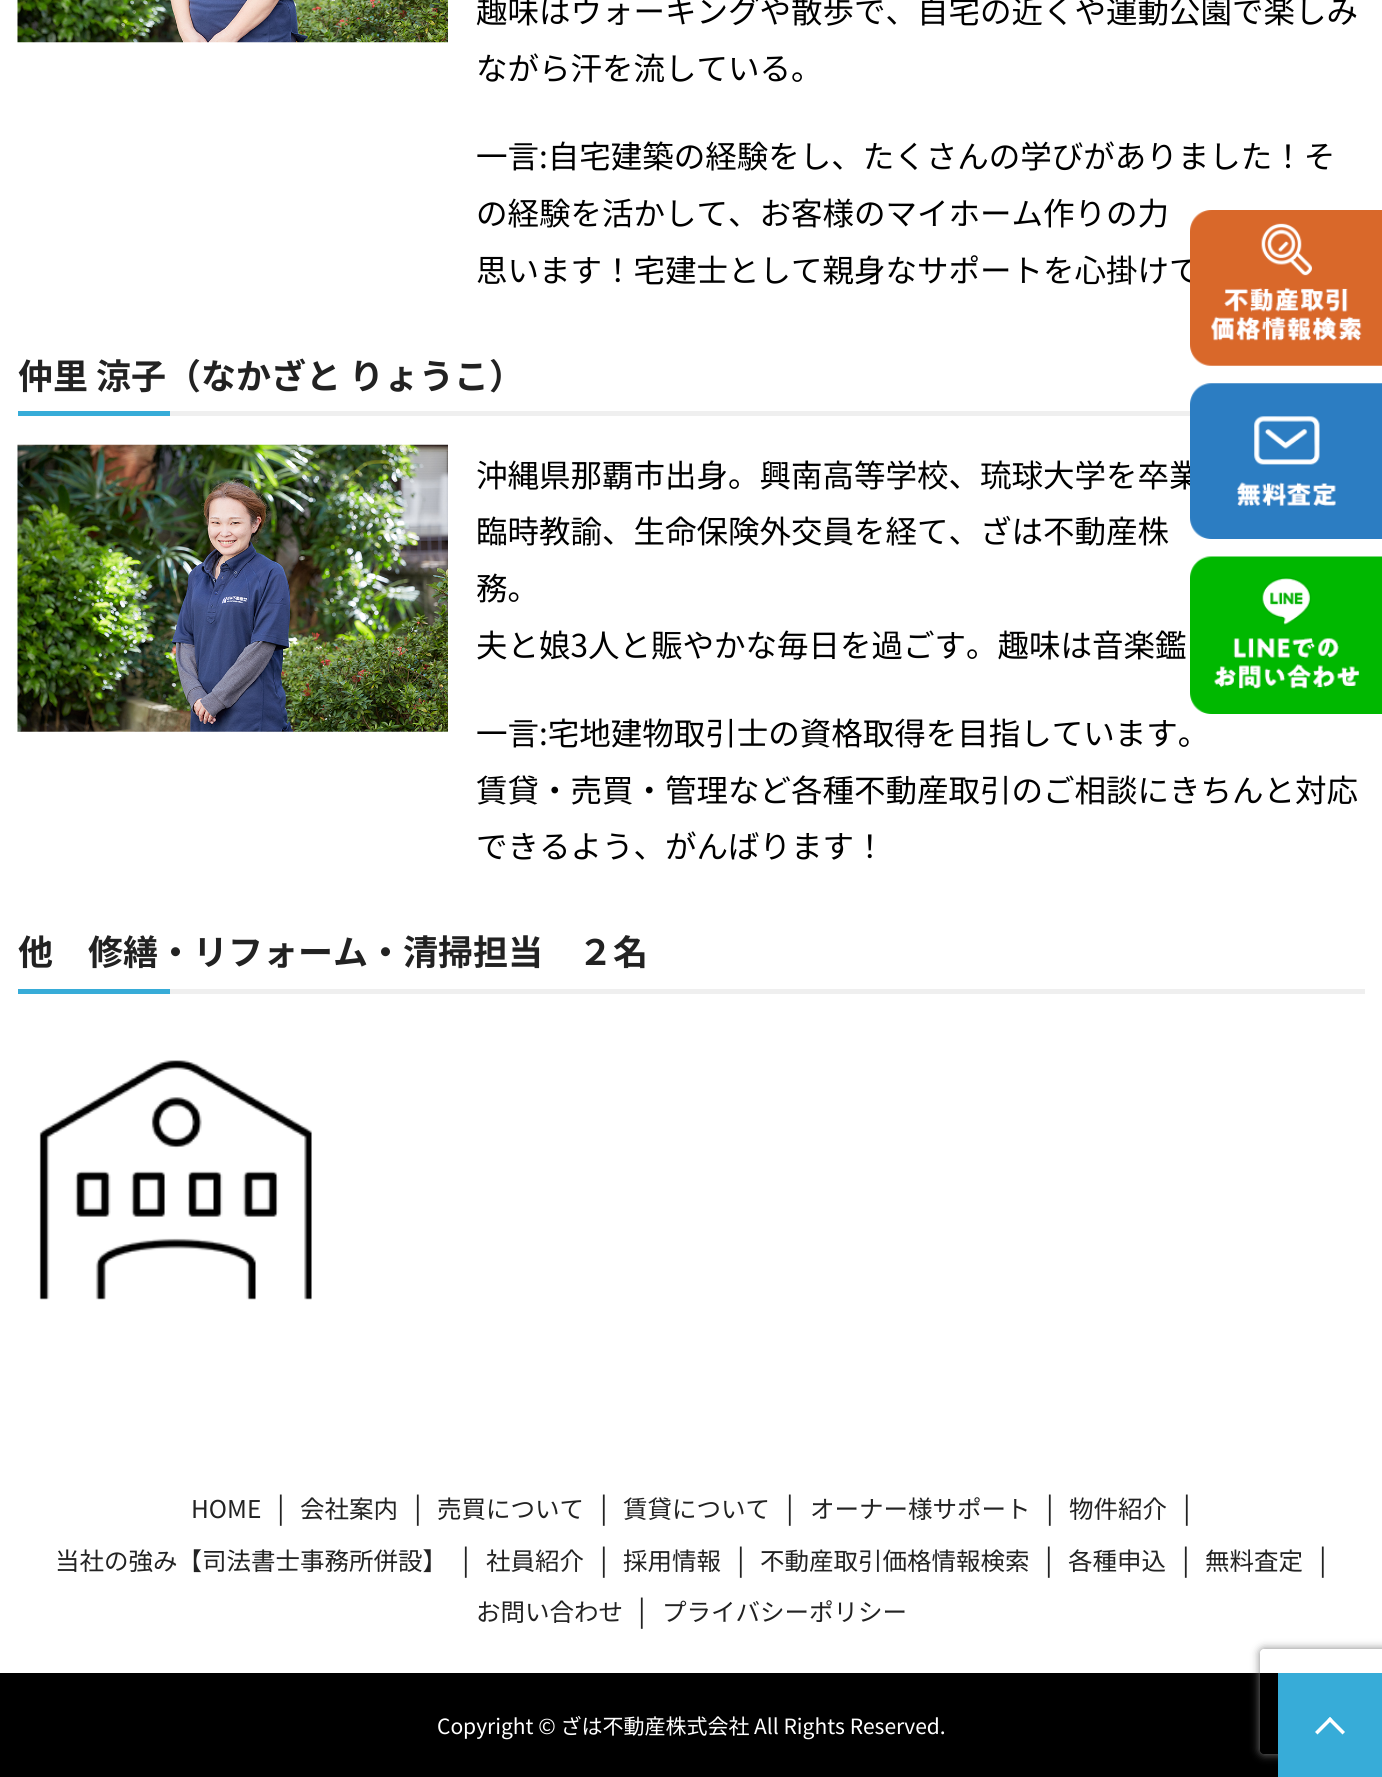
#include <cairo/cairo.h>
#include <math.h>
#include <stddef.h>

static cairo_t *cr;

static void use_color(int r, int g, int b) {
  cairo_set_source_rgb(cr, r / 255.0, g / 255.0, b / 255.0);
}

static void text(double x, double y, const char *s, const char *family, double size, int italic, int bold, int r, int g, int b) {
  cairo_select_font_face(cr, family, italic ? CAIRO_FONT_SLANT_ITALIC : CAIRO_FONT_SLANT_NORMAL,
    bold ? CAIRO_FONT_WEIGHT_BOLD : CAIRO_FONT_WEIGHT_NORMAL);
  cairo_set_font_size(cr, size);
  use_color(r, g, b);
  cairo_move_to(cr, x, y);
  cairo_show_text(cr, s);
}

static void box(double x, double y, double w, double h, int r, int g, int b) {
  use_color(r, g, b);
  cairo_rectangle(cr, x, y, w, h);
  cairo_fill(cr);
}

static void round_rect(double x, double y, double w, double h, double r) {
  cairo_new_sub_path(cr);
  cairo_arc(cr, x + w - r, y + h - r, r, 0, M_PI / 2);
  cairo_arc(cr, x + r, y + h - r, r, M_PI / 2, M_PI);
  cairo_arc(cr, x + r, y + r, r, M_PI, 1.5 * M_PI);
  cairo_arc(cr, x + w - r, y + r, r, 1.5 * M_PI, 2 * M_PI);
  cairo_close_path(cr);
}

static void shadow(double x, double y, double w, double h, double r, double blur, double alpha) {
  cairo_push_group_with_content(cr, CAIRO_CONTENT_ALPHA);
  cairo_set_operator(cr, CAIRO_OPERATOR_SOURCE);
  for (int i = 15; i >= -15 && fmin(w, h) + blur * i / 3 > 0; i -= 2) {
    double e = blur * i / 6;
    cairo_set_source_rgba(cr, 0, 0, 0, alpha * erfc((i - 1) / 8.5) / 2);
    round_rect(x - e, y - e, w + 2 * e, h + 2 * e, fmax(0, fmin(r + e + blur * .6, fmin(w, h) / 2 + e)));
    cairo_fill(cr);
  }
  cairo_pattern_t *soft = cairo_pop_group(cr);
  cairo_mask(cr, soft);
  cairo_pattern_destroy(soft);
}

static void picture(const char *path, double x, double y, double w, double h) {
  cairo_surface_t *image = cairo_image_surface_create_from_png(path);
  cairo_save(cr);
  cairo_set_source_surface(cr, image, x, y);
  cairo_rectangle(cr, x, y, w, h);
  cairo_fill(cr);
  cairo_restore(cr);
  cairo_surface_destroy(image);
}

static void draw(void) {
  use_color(255, 255, 255);
  cairo_paint(cr);
  picture("img_01.png", 17, 0, 431, 43);
  box(170, 411, 1020, 5, 239, 239, 239);
  box(18, 411, 152, 5, 55, 172, 216);
  picture("img_02.png", 17, 444, 431, 288);
  box(170, 989, 1195, 5, 239, 239, 239);
  box(18, 989, 152, 5, 55, 172, 216);
  picture("img_03.png", 39, 1060, 273, 240);
  picture("img_06.png", 1190, 556, 192, 158);
  box(0, 1673, 1278, 104, 0, 0, 0);
  cairo_save(cr);
  cairo_set_fill_rule(cr, CAIRO_FILL_RULE_EVEN_ODD);
  cairo_new_path(cr);
  cairo_move_to(cr, 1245, 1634);
  cairo_line_to(cr, 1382, 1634);
  cairo_line_to(cr, 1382, 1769);
  cairo_line_to(cr, 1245, 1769);
  cairo_close_path(cr);
  cairo_move_to(cr, 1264, 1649);
  cairo_line_to(cr, 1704, 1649);
  cairo_curve_to(cr, 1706, 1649, 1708, 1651, 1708, 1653);
  cairo_line_to(cr, 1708, 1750);
  cairo_curve_to(cr, 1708, 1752, 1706, 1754, 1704, 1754);
  cairo_line_to(cr, 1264, 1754);
  cairo_curve_to(cr, 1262, 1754, 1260, 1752, 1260, 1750);
  cairo_line_to(cr, 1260, 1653);
  cairo_curve_to(cr, 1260, 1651, 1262, 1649, 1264, 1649);
  cairo_close_path(cr);
  cairo_clip(cr);
  use_color(128, 128, 128);
  shadow(1260, 1649, 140, 105, 4, 4.5, 1);
  cairo_restore(cr);
  box(1278, 1673, 104, 104, 55, 172, 216);
  use_color(255, 255, 255);
  cairo_new_path(cr);
  cairo_move_to(cr, 1330, 1717);
  cairo_line_to(cr, 1345, 1732);
  cairo_line_to(cr, 1342.5, 1734.5);
  cairo_line_to(cr, 1327.5, 1719.5);
  cairo_close_path(cr);
  cairo_fill(cr);
  cairo_new_path(cr);
  cairo_move_to(cr, 1330, 1717);
  cairo_line_to(cr, 1332.5, 1719.5);
  cairo_line_to(cr, 1317.5, 1734.5);
  cairo_line_to(cr, 1315, 1732);
  cairo_close_path(cr);
  cairo_fill(cr);
  text(476, 23, "趣味はウォーキングや散歩で、自宅の近くや運動公園で楽しみ", "Noto Sans JP", 31.5, 0, 0, 0, 0, 0);
  text(476, 80, "ながら汗を流している。", "Noto Sans JP", 31.5, 0, 0, 0, 0, 0);
  text(476, 168, "一言:自宅建築の経験をし、たくさんの学びがありました！そ", "Noto Sans JP", 31.5, 0, 0, 0, 0, 0);
  text(476, 225, "の経験を活かして、お客様のマイホーム作りの力", "Noto Sans JP", 31.5, 0, 0, 0, 0, 0);
  text(476, 282, "思います！宅建士として親身なサポートを心掛けて", "Noto Sans JP", 31.5, 0, 0, 0, 0, 0);
  text(18, 389, "仲里 涼子（なかざと りょうこ）", "Noto Sans JP", 35, 0, 1, 34, 34, 34);
  text(476, 487, "沖縄県那覇市出身。興南高等学校、琉球大学を卒業", "Noto Sans JP", 31.5, 0, 0, 0, 0, 0);
  text(476, 543, "臨時教諭、生命保険外交員を経て、ざは不動産株", "Noto Sans JP", 31.5, 0, 0, 0, 0, 0);
  text(476, 600, "務。", "Noto Sans JP", 31.5, 0, 0, 0, 0, 0);
  text(476, 657, "夫と娘3人と賑やかな毎日を過ごす。趣味は音楽鑑", "Noto Sans JP", 31.5, 0, 0, 0, 0, 0);
  text(476, 745, "一言:宅地建物取引士の資格取得を目指しています。", "Noto Sans JP", 31.5, 0, 0, 0, 0, 0);
  text(476, 802, "賃貸・売買・管理など各種不動産取引のご相談にきちんと対応", "Noto Sans JP", 31.5, 0, 0, 0, 0, 0);
  text(476, 858, "できるよう、がんばります！", "Noto Sans JP", 31.5, 0, 0, 0, 0, 0);
  text(18, 965, "他　修繕・リフォーム・清掃担当　２名", "Noto Sans JP", 35, 0, 1, 34, 34, 34);
  picture("img_04.png", 1190, 210, 192, 156);
  picture("img_05.png", 1190, 383, 192, 156);
  text(1183, 1518, "|", "Noto Sans JP", 28, 0, 0, 34, 34, 34);
  text(55, 1570, "当社の強み【司法書士事務所併設】", "Noto Sans JP", 24.5, 0, 0, 34, 34, 34);
  text(191, 1518, "HOME", "Noto Sans JP", 24.5, 0, 0, 34, 34, 34);
  text(277, 1518, "|", "Noto Sans JP", 28, 0, 0, 34, 34, 34);
  text(300, 1518, "会社案内", "Noto Sans JP", 24.5, 0, 0, 34, 34, 34);
  text(414, 1518, "|", "Noto Sans JP", 28, 0, 0, 34, 34, 34);
  text(437, 1518, "売買について", "Noto Sans JP", 24.5, 0, 0, 34, 34, 34);
  text(600, 1518, "|", "Noto Sans JP", 28, 0, 0, 34, 34, 34);
  text(623, 1518, "賃貸について", "Noto Sans JP", 24.5, 0, 0, 34, 34, 34);
  text(786, 1518, "|", "Noto Sans JP", 28, 0, 0, 34, 34, 34);
  text(810, 1518, "オーナー様サポート", "Noto Sans JP", 24.5, 0, 0, 34, 34, 34);
  text(1046, 1518, "|", "Noto Sans JP", 28, 0, 0, 34, 34, 34);
  text(1069, 1518, "物件紹介", "Noto Sans JP", 24.5, 0, 0, 34, 34, 34);
  text(462, 1570, "|", "Noto Sans JP", 28, 0, 0, 34, 34, 34);
  text(486, 1570, "社員紹介", "Noto Sans JP", 24.5, 0, 0, 34, 34, 34);
  text(1319, 1570, "|", "Noto Sans JP", 28, 0, 0, 34, 34, 34);
  text(476, 1621, "お問い合わせ", "Noto Sans JP", 24.5, 0, 0, 34, 34, 34);
  text(600, 1570, "|", "Noto Sans JP", 28, 0, 0, 34, 34, 34);
  text(623, 1570, "採用情報", "Noto Sans JP", 24.5, 0, 0, 34, 34, 34);
  text(737, 1570, "|", "Noto Sans JP", 28, 0, 0, 34, 34, 34);
  text(760, 1570, "不動産取引価格情報検索", "Noto Sans JP", 24.5, 0, 0, 34, 34, 34);
  text(1045, 1570, "|", "Noto Sans JP", 28, 0, 0, 34, 34, 34);
  text(1068, 1570, "各種申込", "Noto Sans JP", 24.5, 0, 0, 34, 34, 34);
  text(1182, 1570, "|", "Noto Sans JP", 28, 0, 0, 34, 34, 34);
  text(1205, 1570, "無料査定", "Noto Sans JP", 24.5, 0, 0, 34, 34, 34);
  text(638, 1621, "|", "Noto Sans JP", 28, 0, 0, 34, 34, 34);
  text(662, 1621, "プライバシーポリシー", "Noto Sans JP", 24.5, 0, 0, 34, 34, 34);
  text(437, 1734, "Copyright © ざは不動産株式会社 All Rights Reserved.", "Noto Sans JP", 21, 0, 0, 255, 255, 255);
}

int main(void) {
  cairo_surface_t *surface = cairo_image_surface_create(CAIRO_FORMAT_RGB24, 1382, 1777);
  cr = cairo_create(surface);
  cairo_font_options_t *options = cairo_font_options_create();
  cairo_font_options_set_hint_metrics(options, CAIRO_HINT_METRICS_OFF);
  cairo_font_options_set_hint_style(options, CAIRO_HINT_STYLE_NONE);
  cairo_set_font_options(cr, options);
  cairo_set_miter_limit(cr, 4);
  draw();
  cairo_surface_write_to_png(surface, "out.png");
  cairo_font_options_destroy(options);
  cairo_destroy(cr);
  cairo_surface_destroy(surface);
  return 0;
}
